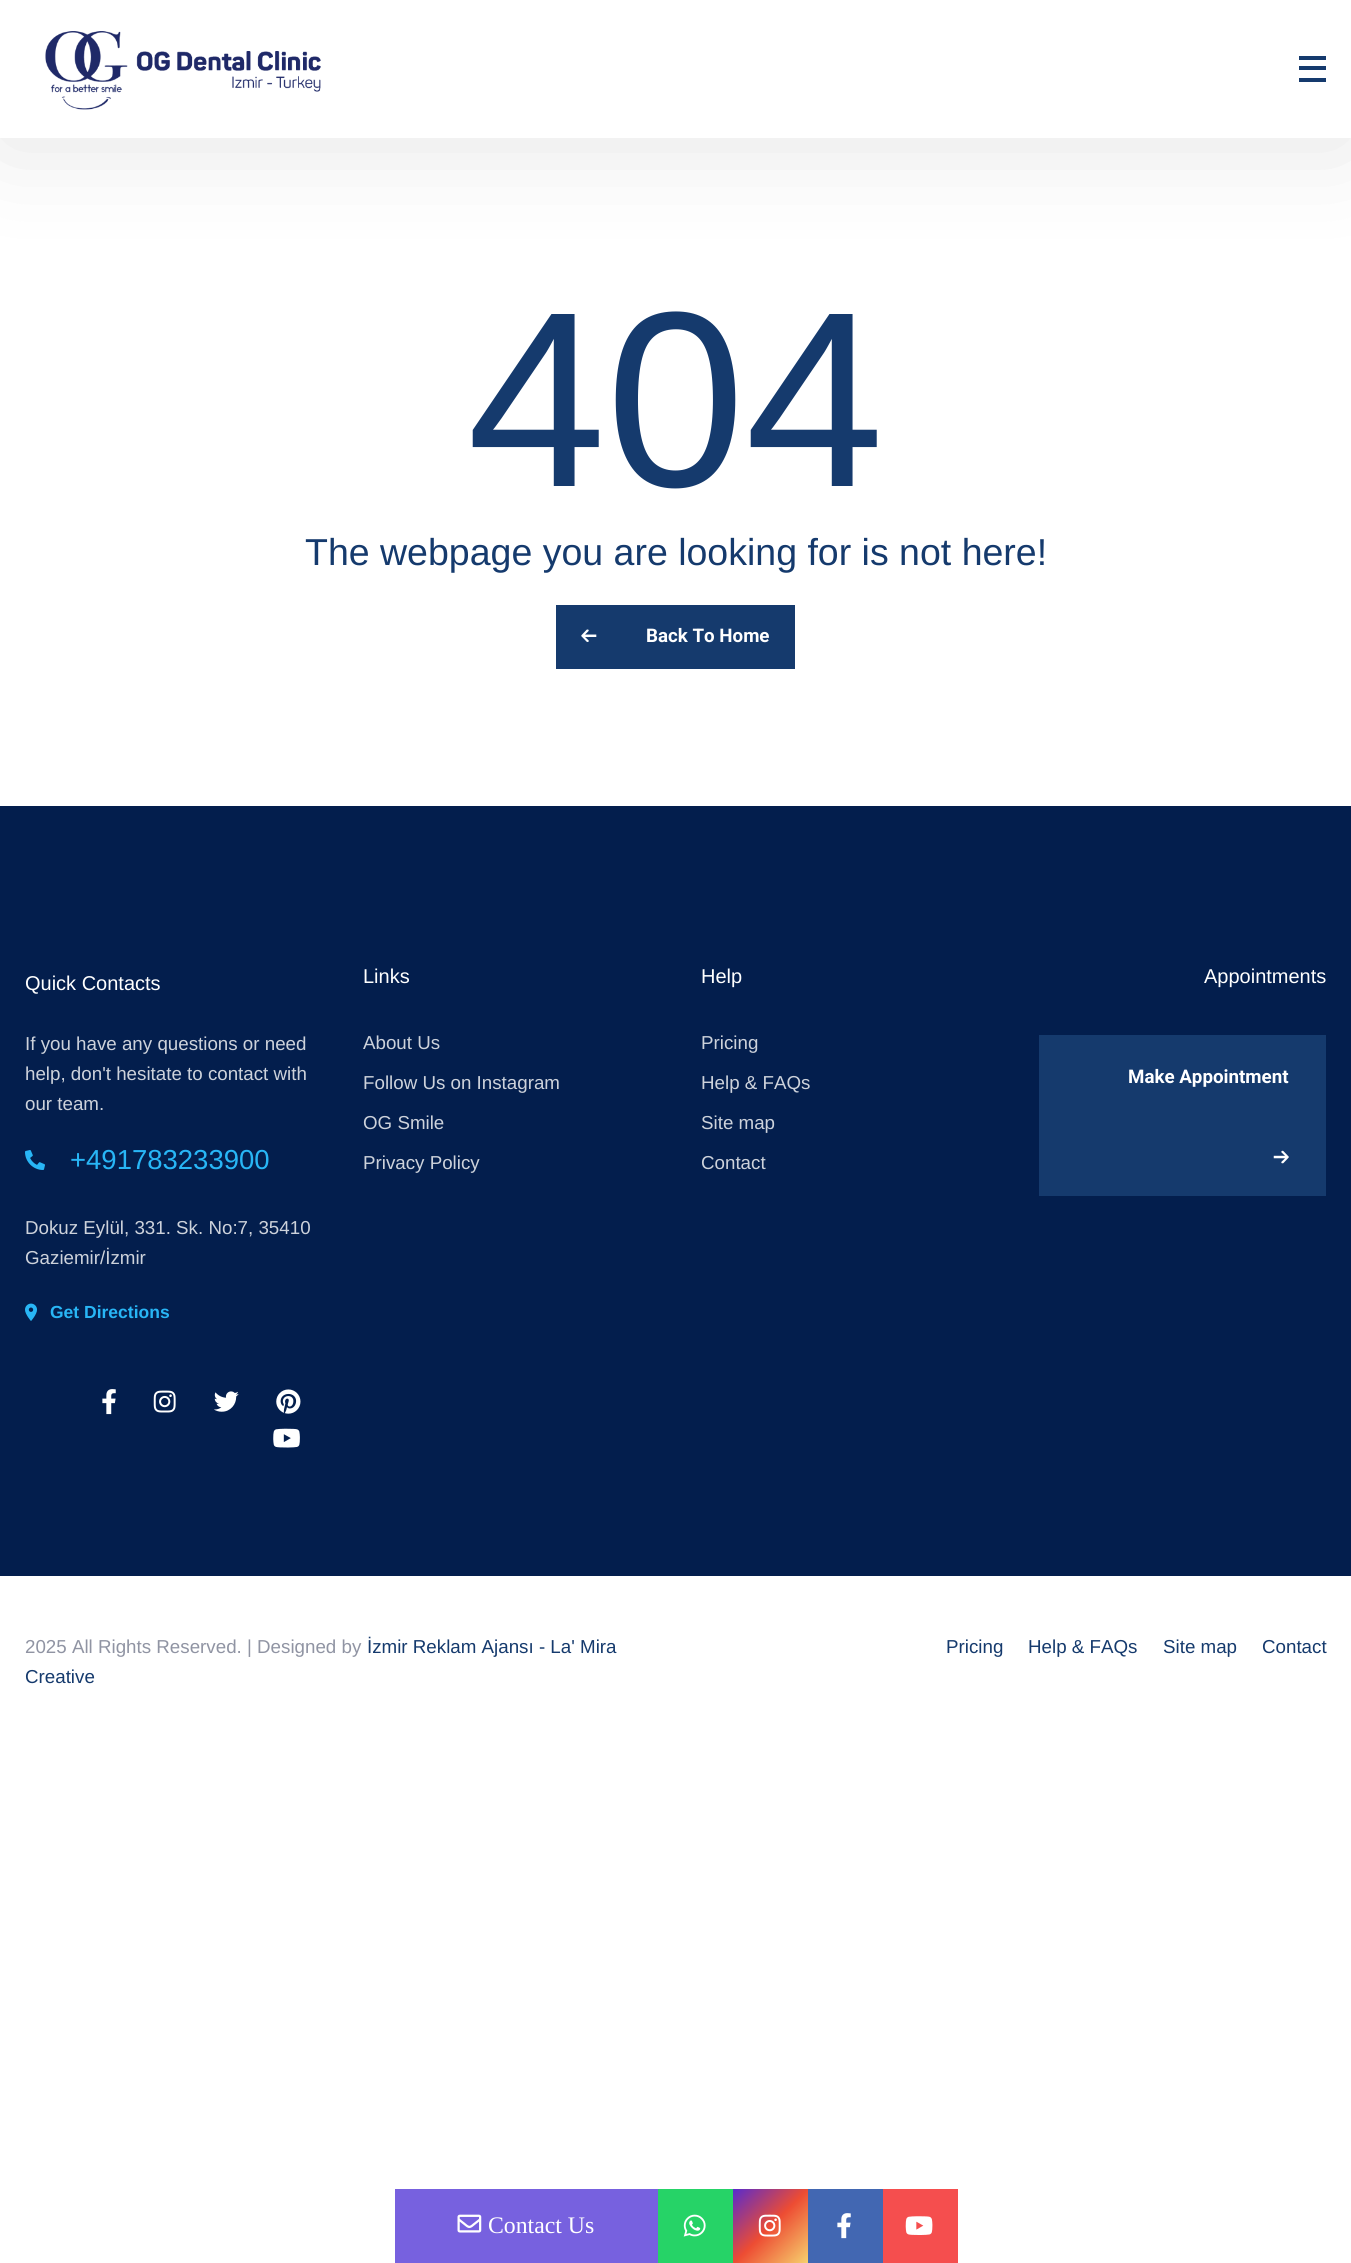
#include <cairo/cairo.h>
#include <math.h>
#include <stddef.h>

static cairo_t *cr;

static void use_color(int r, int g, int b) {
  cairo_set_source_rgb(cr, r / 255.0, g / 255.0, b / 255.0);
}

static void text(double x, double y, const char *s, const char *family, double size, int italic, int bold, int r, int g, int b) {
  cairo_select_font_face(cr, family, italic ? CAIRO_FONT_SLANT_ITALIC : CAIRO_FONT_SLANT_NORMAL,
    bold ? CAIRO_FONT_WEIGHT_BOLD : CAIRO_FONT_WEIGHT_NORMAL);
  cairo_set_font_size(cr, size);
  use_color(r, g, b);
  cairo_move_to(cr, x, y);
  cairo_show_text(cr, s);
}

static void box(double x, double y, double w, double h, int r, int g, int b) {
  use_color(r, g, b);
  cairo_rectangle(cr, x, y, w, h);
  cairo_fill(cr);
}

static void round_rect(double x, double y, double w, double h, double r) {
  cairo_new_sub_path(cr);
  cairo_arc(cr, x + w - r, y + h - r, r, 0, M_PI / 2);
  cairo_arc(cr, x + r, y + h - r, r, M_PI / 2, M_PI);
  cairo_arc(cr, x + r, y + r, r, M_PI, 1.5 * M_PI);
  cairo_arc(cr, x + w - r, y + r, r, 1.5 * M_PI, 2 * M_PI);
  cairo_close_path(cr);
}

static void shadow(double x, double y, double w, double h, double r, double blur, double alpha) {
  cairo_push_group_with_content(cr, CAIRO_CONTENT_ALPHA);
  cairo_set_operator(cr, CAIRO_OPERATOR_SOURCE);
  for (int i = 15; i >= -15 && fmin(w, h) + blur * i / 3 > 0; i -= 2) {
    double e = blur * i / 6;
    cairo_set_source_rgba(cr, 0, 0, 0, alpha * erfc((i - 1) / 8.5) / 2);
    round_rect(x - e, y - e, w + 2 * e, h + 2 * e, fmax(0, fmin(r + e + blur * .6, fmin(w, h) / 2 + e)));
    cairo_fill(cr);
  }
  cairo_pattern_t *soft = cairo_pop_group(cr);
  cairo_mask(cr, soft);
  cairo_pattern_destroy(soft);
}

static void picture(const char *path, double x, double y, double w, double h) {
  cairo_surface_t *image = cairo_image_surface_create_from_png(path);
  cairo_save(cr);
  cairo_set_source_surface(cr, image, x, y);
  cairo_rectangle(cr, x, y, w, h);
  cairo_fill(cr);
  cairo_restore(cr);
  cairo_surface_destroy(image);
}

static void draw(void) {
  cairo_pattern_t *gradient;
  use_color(255, 255, 255);
  cairo_paint(cr);
  use_color(27, 26, 26);
  shadow(0, 6, 1351, 138, 0, 52, 0.12);
  box(0, 0, 1351, 138, 255, 255, 255);
  picture("img_01.png", 45, 31, 276, 79);
  box(1299, 56, 27, 4, 21, 58, 109);
  box(1299, 66, 27, 4, 21, 58, 109);
  box(1299, 78, 27, 4, 21, 58, 109);
  box(556, 605, 239, 64, 21, 58, 109);
  picture("img_02.png", 581, 629, 16, 13);
  box(0, 806, 1351, 770, 3, 30, 77);
  picture("img_03.png", 25, 1150, 20, 20);
  picture("img_04.png", 25, 1303, 12, 18);
  picture("img_05.png", 102, 1389, 14, 26);
  picture("img_06.png", 153, 1390, 23, 23);
  picture("img_07.png", 214, 1391, 25, 21);
  picture("img_08.png", 276, 1389, 25, 25);
  picture("img_09.png", 273, 1428, 27, 20);
  box(1039, 1035, 287, 161, 21, 58, 109);
  picture("img_10.png", 1273, 1150, 16, 14);
  box(395, 2189, 263, 74, 119, 97, 223);
  picture("img_11.png", 457, 2214, 25, 19);
  box(658, 2189, 75, 74, 38, 211, 103);
  picture("img_12.png", 683, 2214, 23, 23);
  gradient = cairo_pattern_create_linear(733, 2189, 808, 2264);
  cairo_pattern_add_color_stop_rgba(gradient, 0, 0.345, 0.169, 0.804, 1);
  cairo_pattern_add_color_stop_rgba(gradient, 0.5, 0.929, 0.298, 0.2, 1);
  cairo_pattern_add_color_stop_rgba(gradient, 1, 0.969, 0.827, 0.435, 1);
  cairo_set_source(cr, gradient);
  cairo_pattern_destroy(gradient);
  cairo_rectangle(cr, 733, 2189, 75, 74);
  cairo_fill(cr);
  picture("img_13.png", 758, 2214, 23, 23);
  box(808, 2189, 75, 74, 66, 103, 178);
  picture("img_14.png", 837, 2213, 14, 26);
  box(883, 2189, 75, 74, 245, 78, 78);
  picture("img_15.png", 905, 2216, 28, 19);
  text(467, 486, "404", "Liberation Sans", 250, 0, 0, 21, 58, 109);
  text(305, 565, "The webpage you are looking for is not here!", "Liberation Sans", 37.5, 0, 0, 21, 58, 109);
  text(646, 642, "Back To Home", "Roboto", 18.75, 0, 1, 255, 255, 255);
  text(25, 990, "Quick Contacts", "Liberation Sans", 20, 0, 0, 255, 255, 255);
  text(25, 1050, "If you have any questions or need", "Liberation Sans", 18.75, 0, 0, 205, 210, 219);
  text(25, 1080, "help, don't hesitate to contact with", "Liberation Sans", 18.75, 0, 0, 205, 210, 219);
  text(25, 1110, "our team.", "Liberation Sans", 18.75, 0, 0, 205, 210, 219);
  text(70, 1169, "+491783233900", "Liberation Sans", 27.5, 0, 0, 40, 182, 246);
  text(25, 1234, "Dokuz Eylül, 331. Sk. No:7, 35410", "Liberation Sans", 18.75, 0, 0, 205, 210, 219);
  text(25, 1264, "Gaziemir/İzmir", "Liberation Sans", 18.75, 0, 0, 205, 210, 219);
  text(50, 1318, "Get Directions", "Liberation Sans", 17.5, 0, 1, 40, 182, 246);
  text(363, 983, "Links", "Liberation Sans", 20, 0, 0, 255, 255, 255);
  text(363, 1049, "About Us", "Liberation Sans", 18.75, 0, 0, 205, 210, 219);
  text(363, 1089, "Follow Us on Instagram", "Liberation Sans", 18.75, 0, 0, 205, 210, 219);
  text(363, 1129, "OG Smile", "Liberation Sans", 18.75, 0, 0, 205, 210, 219);
  text(363, 1169, "Privacy Policy", "Liberation Sans", 18.75, 0, 0, 205, 210, 219);
  text(701, 983, "Help", "Liberation Sans", 20, 0, 0, 255, 255, 255);
  text(701, 1049, "Pricing", "Liberation Sans", 18.75, 0, 0, 205, 210, 219);
  text(701, 1089, "Help & FAQs", "Liberation Sans", 18.75, 0, 0, 205, 210, 219);
  text(701, 1129, "Site map", "Liberation Sans", 18.75, 0, 0, 205, 210, 219);
  text(701, 1169, "Contact", "Liberation Sans", 18.75, 0, 0, 205, 210, 219);
  text(1204, 983, "Appointments", "Liberation Sans", 20, 0, 0, 255, 255, 255);
  text(1128, 1083, "Make Appointment", "Roboto", 18.75, 0, 1, 255, 255, 255);
  text(25, 1653, "2025 All Rights Reserved. | Designed by", "Liberation Sans", 18.75, 0, 0, 144, 148, 163);
  text(367, 1653, "İzmir Reklam Ajansı - La' Mira", "Liberation Sans", 18.75, 0, 0, 21, 58, 109);
  text(25, 1683, "Creative", "Liberation Sans", 18.75, 0, 0, 21, 58, 109);
  text(946, 1653, "Pricing", "Liberation Sans", 18.75, 0, 0, 21, 58, 109);
  text(1028, 1653, "Help & FAQs", "Liberation Sans", 18.75, 0, 0, 21, 58, 109);
  text(1163, 1653, "Site map", "Liberation Sans", 18.75, 0, 0, 21, 58, 109);
  text(1262, 1653, "Contact", "Liberation Sans", 18.75, 0, 0, 21, 58, 109);
  text(488, 2233, "Contact Us", "Liberation Serif", 23.75, 0, 0, 255, 255, 255);
}

int main(void) {
  cairo_surface_t *surface = cairo_image_surface_create(CAIRO_FORMAT_RGB24, 1351, 2263);
  cr = cairo_create(surface);
  cairo_font_options_t *options = cairo_font_options_create();
  cairo_font_options_set_hint_metrics(options, CAIRO_HINT_METRICS_OFF);
  cairo_font_options_set_hint_style(options, CAIRO_HINT_STYLE_NONE);
  cairo_set_font_options(cr, options);
  cairo_set_miter_limit(cr, 4);
  draw();
  cairo_surface_write_to_png(surface, "out.png");
  cairo_font_options_destroy(options);
  cairo_destroy(cr);
  cairo_surface_destroy(surface);
  return 0;
}
